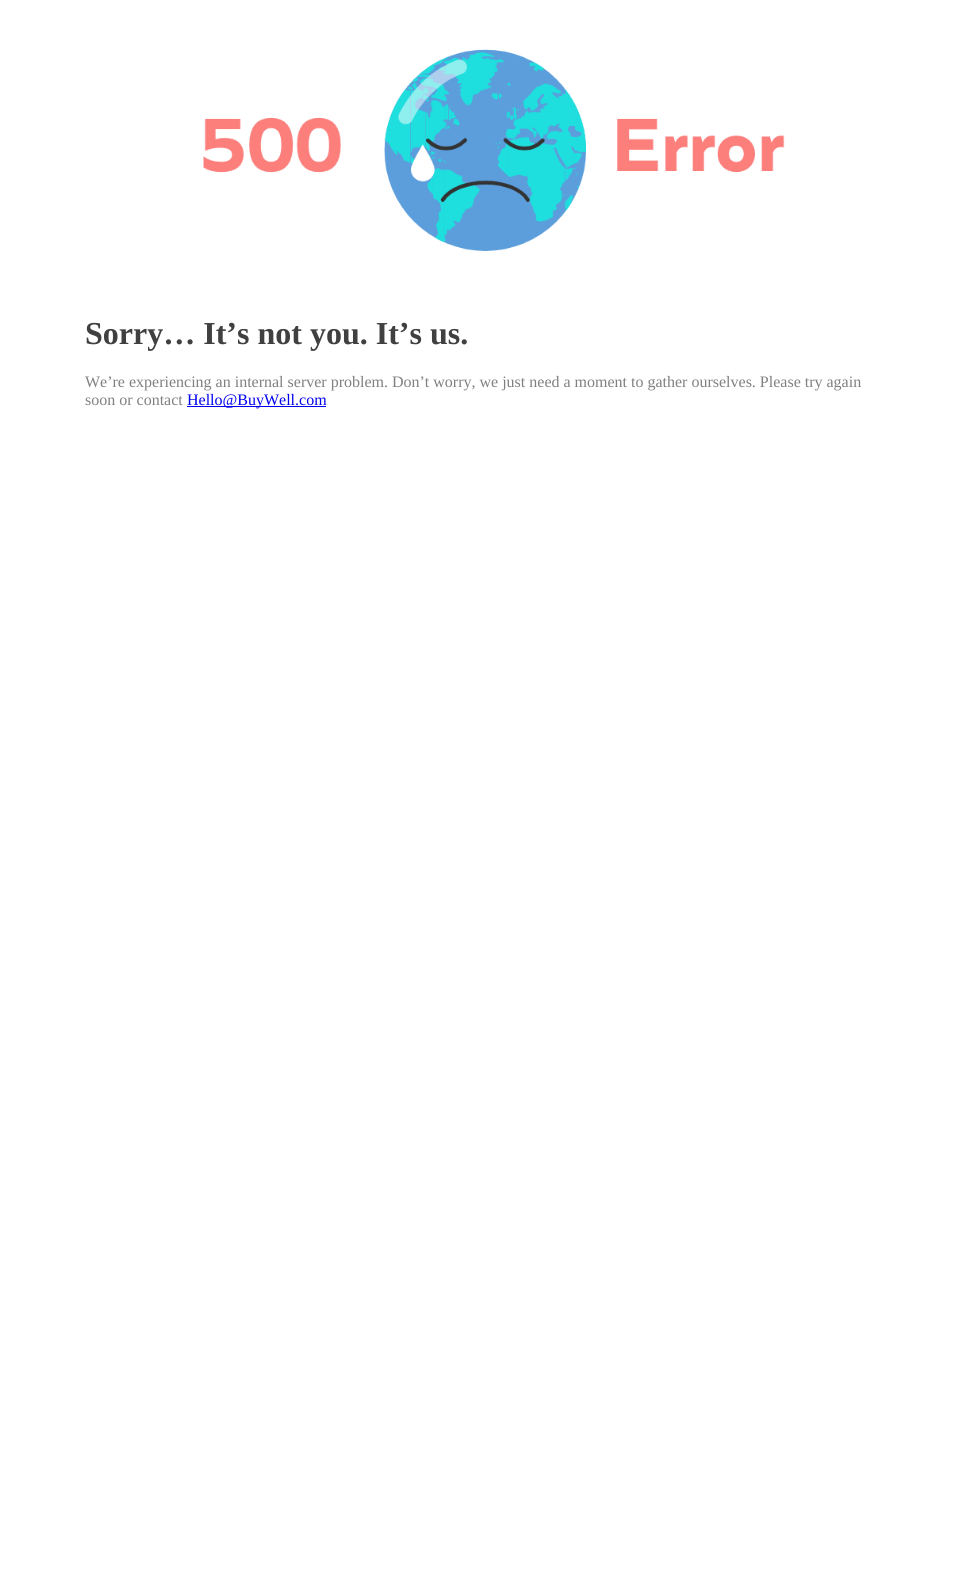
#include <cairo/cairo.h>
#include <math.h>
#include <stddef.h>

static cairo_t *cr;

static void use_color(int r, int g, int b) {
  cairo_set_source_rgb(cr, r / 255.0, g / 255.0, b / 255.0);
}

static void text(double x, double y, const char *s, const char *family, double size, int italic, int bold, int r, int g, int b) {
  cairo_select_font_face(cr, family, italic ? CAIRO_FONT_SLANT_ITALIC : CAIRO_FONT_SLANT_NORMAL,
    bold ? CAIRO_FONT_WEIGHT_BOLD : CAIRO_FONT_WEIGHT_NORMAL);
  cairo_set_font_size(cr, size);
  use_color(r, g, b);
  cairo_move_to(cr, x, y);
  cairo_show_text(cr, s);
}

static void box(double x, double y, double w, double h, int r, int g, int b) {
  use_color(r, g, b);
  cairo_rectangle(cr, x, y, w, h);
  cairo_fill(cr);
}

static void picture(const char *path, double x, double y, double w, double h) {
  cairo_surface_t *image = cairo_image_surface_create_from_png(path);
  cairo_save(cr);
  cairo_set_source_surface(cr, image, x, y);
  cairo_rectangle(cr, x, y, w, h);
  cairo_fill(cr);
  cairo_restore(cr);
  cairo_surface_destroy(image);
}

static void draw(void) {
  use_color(255, 255, 255);
  cairo_paint(cr);
  picture("img_01.png", 203, 49, 582, 202);
  box(187, 406, 139, 1, 0, 0, 238);
  text(85, 344, "Sorry… It’s not you. It’s us.", "Liberation Serif", 32, 0, 1, 64, 64, 64);
  text(85, 387, "We’re experiencing an internal server problem. Don’t worry, we just need a moment to gather ourselves. Please try again", "Liberation Serif", 16, 0, 0, 128, 128, 128);
  text(85, 405, "soon or contact", "Liberation Serif", 16, 0, 0, 128, 128, 128);
  text(187, 405, "Hello@BuyWell.com", "Liberation Serif", 16, 0, 0, 0, 0, 238);
}

int main(void) {
  cairo_surface_t *surface = cairo_image_surface_create(CAIRO_FORMAT_RGB24, 970, 1591);
  cr = cairo_create(surface);
  cairo_font_options_t *options = cairo_font_options_create();
  cairo_font_options_set_hint_metrics(options, CAIRO_HINT_METRICS_OFF);
  cairo_font_options_set_hint_style(options, CAIRO_HINT_STYLE_NONE);
  cairo_set_font_options(cr, options);
  cairo_set_miter_limit(cr, 4);
  draw();
  cairo_surface_write_to_png(surface, "out.png");
  cairo_font_options_destroy(options);
  cairo_destroy(cr);
  cairo_surface_destroy(surface);
  return 0;
}
